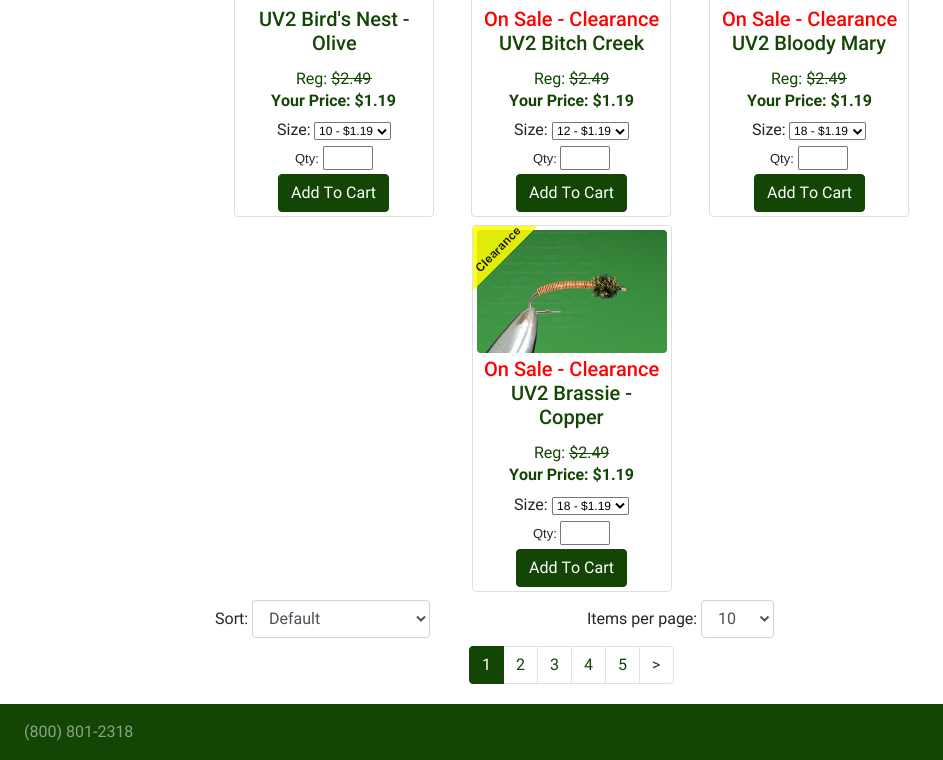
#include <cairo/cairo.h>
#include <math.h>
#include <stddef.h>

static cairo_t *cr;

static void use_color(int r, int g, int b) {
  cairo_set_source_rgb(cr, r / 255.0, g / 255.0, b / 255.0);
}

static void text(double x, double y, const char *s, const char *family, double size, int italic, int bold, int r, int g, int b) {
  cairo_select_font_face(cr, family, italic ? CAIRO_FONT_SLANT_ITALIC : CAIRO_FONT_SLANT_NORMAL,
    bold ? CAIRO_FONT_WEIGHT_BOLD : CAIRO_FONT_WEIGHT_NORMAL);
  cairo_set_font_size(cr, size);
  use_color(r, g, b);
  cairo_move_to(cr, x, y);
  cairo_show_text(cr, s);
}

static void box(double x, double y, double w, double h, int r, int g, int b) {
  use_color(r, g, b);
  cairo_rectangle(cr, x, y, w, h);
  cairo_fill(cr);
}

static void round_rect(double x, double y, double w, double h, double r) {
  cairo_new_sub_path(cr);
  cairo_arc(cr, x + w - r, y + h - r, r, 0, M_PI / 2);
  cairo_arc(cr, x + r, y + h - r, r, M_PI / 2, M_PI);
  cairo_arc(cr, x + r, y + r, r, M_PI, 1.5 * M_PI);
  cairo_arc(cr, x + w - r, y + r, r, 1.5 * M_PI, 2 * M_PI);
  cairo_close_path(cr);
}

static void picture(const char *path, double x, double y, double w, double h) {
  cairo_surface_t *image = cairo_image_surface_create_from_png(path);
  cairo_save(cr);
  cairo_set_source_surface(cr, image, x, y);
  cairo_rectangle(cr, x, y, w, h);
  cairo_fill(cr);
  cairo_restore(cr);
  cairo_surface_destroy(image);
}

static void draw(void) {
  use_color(255, 255, 255);
  cairo_paint(cr);
  round_rect(234.5, -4.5, 199, 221, 3.5);
  use_color(223, 223, 223);
  cairo_set_line_width(cr, 1);
  cairo_stroke(cr);
  box(331, 78, 41, 1, 19, 69, 5);
  round_rect(314.5, 122.5, 76, 17, 1.5);
  use_color(118, 118, 118);
  cairo_stroke(cr);
  cairo_new_path(cr);
  cairo_move_to(cr, 378, 129.5);
  cairo_line_to(cr, 382, 133.5);
  cairo_line_to(cr, 386, 129.5);
  use_color(0, 0, 0);
  cairo_set_line_width(cr, 2);
  cairo_stroke(cr);
  round_rect(323.5, 146.5, 49, 23, 1.5);
  use_color(118, 118, 118);
  cairo_set_line_width(cr, 1);
  cairo_stroke(cr);
  use_color(19, 69, 5);
  round_rect(278.5, 174.5, 110, 37, 3.5);
  cairo_fill_preserve(cr);
  cairo_stroke(cr);
  round_rect(471.5, -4.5, 199, 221, 3.5);
  use_color(223, 223, 223);
  cairo_stroke(cr);
  box(569, 78, 40, 1, 19, 69, 5);
  round_rect(552.5, 122.5, 76, 17, 1.5);
  use_color(118, 118, 118);
  cairo_stroke(cr);
  cairo_new_path(cr);
  cairo_move_to(cr, 616, 129.5);
  cairo_line_to(cr, 620, 133.5);
  cairo_line_to(cr, 624, 129.5);
  use_color(0, 0, 0);
  cairo_set_line_width(cr, 2);
  cairo_stroke(cr);
  round_rect(560.5, 146.5, 49, 23, 1.5);
  use_color(118, 118, 118);
  cairo_set_line_width(cr, 1);
  cairo_stroke(cr);
  use_color(19, 69, 5);
  round_rect(516.5, 174.5, 110, 37, 3.5);
  cairo_fill_preserve(cr);
  cairo_stroke(cr);
  round_rect(709.5, -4.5, 199, 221, 3.5);
  use_color(223, 223, 223);
  cairo_stroke(cr);
  box(807, 78, 40, 1, 19, 69, 5);
  round_rect(789.5, 122.5, 76, 17, 1.5);
  use_color(118, 118, 118);
  cairo_stroke(cr);
  cairo_new_path(cr);
  cairo_move_to(cr, 853.5, 129.5);
  cairo_line_to(cr, 857.5, 133.5);
  cairo_line_to(cr, 861.5, 129.5);
  use_color(0, 0, 0);
  cairo_set_line_width(cr, 2);
  cairo_stroke(cr);
  round_rect(798.5, 146.5, 49, 23, 1.5);
  use_color(118, 118, 118);
  cairo_set_line_width(cr, 1);
  cairo_stroke(cr);
  use_color(19, 69, 5);
  round_rect(754.5, 174.5, 110, 37, 3.5);
  cairo_fill_preserve(cr);
  cairo_stroke(cr);
  round_rect(472.5, 225.5, 199, 366, 3.5);
  use_color(223, 223, 223);
  cairo_stroke(cr);
  picture("img_02.png", 477, 230, 190, 123);
  picture("img_01.png", 473, 226, 64, 64);
  box(569, 453, 40, 1, 19, 69, 5);
  round_rect(552.5, 497.5, 76, 17, 1.5);
  use_color(118, 118, 118);
  cairo_stroke(cr);
  cairo_new_path(cr);
  cairo_move_to(cr, 616, 503.5);
  cairo_line_to(cr, 620, 507.5);
  cairo_line_to(cr, 624, 503.5);
  use_color(0, 0, 0);
  cairo_set_line_width(cr, 2);
  cairo_stroke(cr);
  round_rect(560.5, 521.5, 49, 23, 1.5);
  use_color(118, 118, 118);
  cairo_set_line_width(cr, 1);
  cairo_stroke(cr);
  use_color(19, 69, 5);
  round_rect(516.5, 549.5, 110, 37, 3.5);
  cairo_fill_preserve(cr);
  cairo_stroke(cr);
  round_rect(252.5, 600.5, 177, 37, 3.5);
  use_color(206, 212, 218);
  cairo_stroke(cr);
  cairo_new_path(cr);
  cairo_move_to(cr, 417, 616.5);
  cairo_line_to(cr, 421, 620.5);
  cairo_line_to(cr, 425, 616.5);
  use_color(73, 80, 87);
  cairo_set_line_width(cr, 2);
  cairo_stroke(cr);
  round_rect(701.5, 600.5, 72, 37, 3.5);
  use_color(206, 212, 218);
  cairo_set_line_width(cr, 1);
  cairo_stroke(cr);
  cairo_new_path(cr);
  cairo_move_to(cr, 760.5, 616.5);
  cairo_line_to(cr, 764.5, 620.5);
  cairo_line_to(cr, 768.5, 616.5);
  use_color(73, 80, 87);
  cairo_set_line_width(cr, 2);
  cairo_stroke(cr);
  cairo_rectangle(cr, 503.5, 646.5, 34, 37);
  use_color(222, 226, 230);
  cairo_set_line_width(cr, 1);
  cairo_stroke(cr);
  use_color(19, 69, 5);
  cairo_new_path(cr);
  cairo_move_to(cr, 473, 646.5);
  cairo_line_to(cr, 503.5, 646.5);
  cairo_line_to(cr, 503.5, 683.5);
  cairo_line_to(cr, 473, 683.5);
  cairo_curve_to(cr, 471, 683.5, 469.5, 682, 469.5, 680);
  cairo_line_to(cr, 469.5, 650);
  cairo_curve_to(cr, 469.5, 648, 471, 646.5, 473, 646.5);
  cairo_close_path(cr);
  cairo_fill_preserve(cr);
  cairo_stroke(cr);
  cairo_rectangle(cr, 537.5, 646.5, 34, 37);
  use_color(222, 226, 230);
  cairo_stroke(cr);
  cairo_rectangle(cr, 571.5, 646.5, 34, 37);
  cairo_stroke(cr);
  cairo_rectangle(cr, 605.5, 646.5, 34, 37);
  cairo_stroke(cr);
  use_color(255, 255, 255);
  cairo_new_path(cr);
  cairo_move_to(cr, 639.5, 646.5);
  cairo_line_to(cr, 670, 646.5);
  cairo_curve_to(cr, 672, 646.5, 673.5, 648, 673.5, 650);
  cairo_line_to(cr, 673.5, 680);
  cairo_curve_to(cr, 673.5, 682, 672, 683.5, 670, 683.5);
  cairo_line_to(cr, 639.5, 683.5);
  cairo_close_path(cr);
  cairo_fill_preserve(cr);
  use_color(222, 226, 230);
  cairo_stroke(cr);
  box(0, 704, 943, 56, 19, 69, 5);
  text(259, 26, "UV2 Bird's Nest -", "Roboto Medium", 20, 0, 0, 19, 69, 5);
  text(312, 50, "Olive", "Roboto Medium", 20, 0, 0, 19, 69, 5);
  text(296, 84, "Reg: $2.49", "Roboto", 16, 0, 0, 19, 69, 5);
  text(271, 106, "Your Price: $1.19", "Roboto", 16, 0, 1, 19, 69, 5);
  text(277, 135, "Size:", "Roboto", 16, 0, 0, 33, 37, 41);
  text(319, 135, "10 - $1.19", "Liberation Sans", 12, 0, 0, 0, 0, 0);
  text(295, 163, "Qty:", "Liberation Sans", 13, 0, 0, 33, 37, 41);
  text(291, 198, "Add To Cart", "Roboto", 16, 0, 0, 255, 255, 255);
  text(484, 26, "On Sale - Clearance", "Roboto Medium", 20, 0, 0, 255, 0, 0);
  text(499, 50, "UV2 Bitch Creek", "Roboto Medium", 20, 0, 0, 19, 69, 5);
  text(534, 84, "Reg: $2.49", "Roboto", 16, 0, 0, 19, 69, 5);
  text(509, 106, "Your Price: $1.19", "Roboto", 16, 0, 1, 19, 69, 5);
  text(514, 135, "Size:", "Roboto", 16, 0, 0, 33, 37, 41);
  text(557, 135, "12 - $1.19", "Liberation Sans", 12, 0, 0, 0, 0, 0);
  text(533, 163, "Qty:", "Liberation Sans", 13, 0, 0, 33, 37, 41);
  text(529, 198, "Add To Cart", "Roboto", 16, 0, 0, 255, 255, 255);
  text(722, 26, "On Sale - Clearance", "Roboto Medium", 20, 0, 0, 255, 0, 0);
  text(732, 50, "UV2 Bloody Mary", "Roboto Medium", 20, 0, 0, 19, 69, 5);
  text(771, 84, "Reg: $2.49", "Roboto", 16, 0, 0, 19, 69, 5);
  text(747, 106, "Your Price: $1.19", "Roboto", 16, 0, 1, 19, 69, 5);
  text(752, 135, "Size:", "Roboto", 16, 0, 0, 33, 37, 41);
  text(794, 135, "18 - $1.19", "Liberation Sans", 12, 0, 0, 0, 0, 0);
  text(770, 163, "Qty:", "Liberation Sans", 13, 0, 0, 33, 37, 41);
  text(767, 198, "Add To Cart", "Roboto", 16, 0, 0, 255, 255, 255);
  text(484, 376, "On Sale - Clearance", "Roboto Medium", 20, 0, 0, 255, 0, 0);
  text(511, 400, "UV2 Brassie -", "Roboto Medium", 20, 0, 0, 19, 69, 5);
  text(539, 424, "Copper", "Roboto Medium", 20, 0, 0, 19, 69, 5);
  text(534, 458, "Reg: $2.49", "Roboto", 16, 0, 0, 19, 69, 5);
  text(509, 480, "Your Price: $1.19", "Roboto", 16, 0, 1, 19, 69, 5);
  text(514, 510, "Size:", "Roboto", 16, 0, 0, 33, 37, 41);
  text(557, 510, "18 - $1.19", "Liberation Sans", 12, 0, 0, 0, 0, 0);
  text(533, 538, "Qty:", "Liberation Sans", 13, 0, 0, 33, 37, 41);
  text(529, 573, "Add To Cart", "Roboto", 16, 0, 0, 255, 255, 255);
  text(215, 624, "Sort:", "Roboto", 16, 0, 0, 33, 37, 41);
  text(269, 624, "Default", "Roboto", 16, 0, 0, 73, 80, 87);
  text(587, 624, "Items per page:", "Roboto", 16, 0, 0, 33, 37, 41);
  text(718, 624, "10", "Roboto", 16, 0, 0, 73, 80, 87);
  text(482, 670, "1", "Roboto", 16, 0, 0, 255, 255, 255);
  text(516, 670, "2", "Roboto", 16, 0, 0, 19, 69, 5);
  text(550, 670, "3", "Roboto", 16, 0, 0, 19, 69, 5);
  text(584, 670, "4", "Roboto", 16, 0, 0, 19, 69, 5);
  text(618, 670, "5", "Roboto", 16, 0, 0, 19, 69, 5);
  text(652, 670, ">", "Roboto", 16, 0, 0, 19, 69, 5);
  text(24, 737, "(800) 801-2318", "Roboto", 16, 0, 0, 137, 162, 130);
}

int main(void) {
  cairo_surface_t *surface = cairo_image_surface_create(CAIRO_FORMAT_RGB24, 943, 760);
  cr = cairo_create(surface);
  cairo_font_options_t *options = cairo_font_options_create();
  cairo_font_options_set_hint_metrics(options, CAIRO_HINT_METRICS_OFF);
  cairo_font_options_set_hint_style(options, CAIRO_HINT_STYLE_NONE);
  cairo_set_font_options(cr, options);
  cairo_set_miter_limit(cr, 4);
  draw();
  cairo_surface_write_to_png(surface, "out.png");
  cairo_font_options_destroy(options);
  cairo_destroy(cr);
  cairo_surface_destroy(surface);
  return 0;
}
